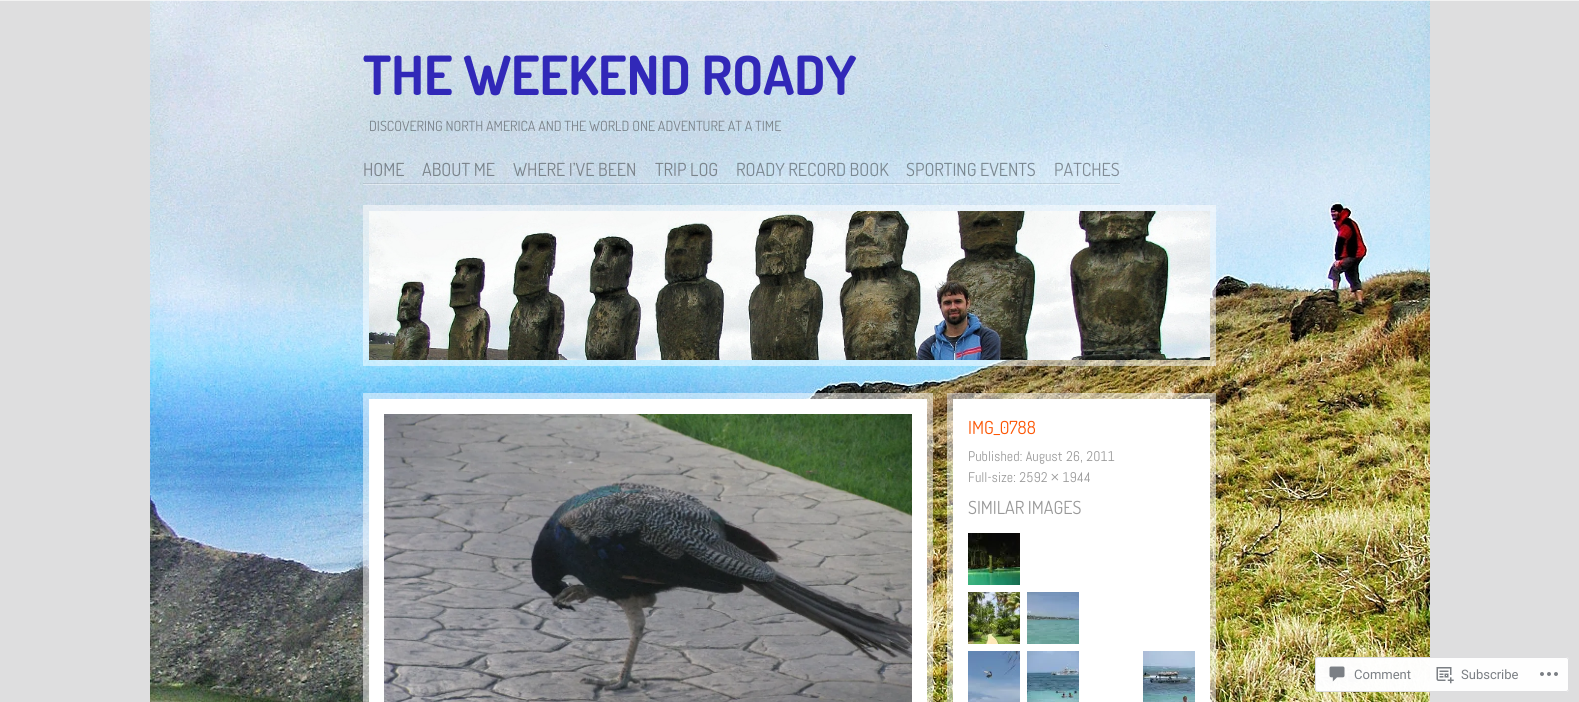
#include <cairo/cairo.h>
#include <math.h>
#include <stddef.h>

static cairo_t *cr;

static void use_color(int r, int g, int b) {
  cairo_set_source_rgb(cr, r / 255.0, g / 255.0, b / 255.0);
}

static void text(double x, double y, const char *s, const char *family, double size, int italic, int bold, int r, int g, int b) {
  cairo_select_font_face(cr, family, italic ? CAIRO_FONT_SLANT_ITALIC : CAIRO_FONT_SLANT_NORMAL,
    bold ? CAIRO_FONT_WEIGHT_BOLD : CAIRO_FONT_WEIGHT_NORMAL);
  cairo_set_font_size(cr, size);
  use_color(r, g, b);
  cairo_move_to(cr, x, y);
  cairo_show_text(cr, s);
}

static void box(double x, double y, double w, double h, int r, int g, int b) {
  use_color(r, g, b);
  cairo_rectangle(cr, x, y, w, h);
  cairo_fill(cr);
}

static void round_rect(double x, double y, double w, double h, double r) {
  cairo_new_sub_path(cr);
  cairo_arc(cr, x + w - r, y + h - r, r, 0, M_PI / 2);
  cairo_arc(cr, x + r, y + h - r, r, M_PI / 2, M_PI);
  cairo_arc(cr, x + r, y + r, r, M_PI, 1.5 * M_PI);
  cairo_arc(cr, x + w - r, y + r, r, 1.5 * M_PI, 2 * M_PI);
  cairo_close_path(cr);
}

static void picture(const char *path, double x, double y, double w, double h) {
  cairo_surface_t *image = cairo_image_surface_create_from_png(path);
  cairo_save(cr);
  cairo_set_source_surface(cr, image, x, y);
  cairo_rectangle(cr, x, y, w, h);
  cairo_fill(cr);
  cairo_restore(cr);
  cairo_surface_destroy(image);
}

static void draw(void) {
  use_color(222, 222, 223);
  cairo_paint(cr);
  picture("img_01.png", 150, 0, 1280, 702);
  cairo_set_source_rgba(cr, 1, 1, 1, 0.6);
  cairo_rectangle(cr, 0, 0, 1579, 1);
  cairo_fill(cr);
  cairo_set_source_rgba(cr, 1, 1, 1, 0.4);
  cairo_rectangle(cr, 363, 184, 59, 1);
  cairo_fill(cr);
  cairo_set_source_rgba(cr, 0, 0, 0, 0.1);
  cairo_rectangle(cr, 363, 183, 59, 1);
  cairo_fill(cr);
  cairo_set_source_rgba(cr, 1, 1, 1, 0.4);
  cairo_rectangle(cr, 422, 184, 91, 1);
  cairo_fill(cr);
  cairo_set_source_rgba(cr, 0, 0, 0, 0.1);
  cairo_rectangle(cr, 422, 183, 91, 1);
  cairo_fill(cr);
  cairo_set_source_rgba(cr, 1, 1, 1, 0.4);
  cairo_rectangle(cr, 513, 184, 142, 1);
  cairo_fill(cr);
  cairo_set_source_rgba(cr, 0, 0, 0, 0.1);
  cairo_rectangle(cr, 513, 183, 142, 1);
  cairo_fill(cr);
  cairo_set_source_rgba(cr, 1, 1, 1, 0.4);
  cairo_rectangle(cr, 655, 184, 81, 1);
  cairo_fill(cr);
  cairo_set_source_rgba(cr, 0, 0, 0, 0.1);
  cairo_rectangle(cr, 655, 183, 81, 1);
  cairo_fill(cr);
  cairo_set_source_rgba(cr, 1, 1, 1, 0.4);
  cairo_rectangle(cr, 736, 184, 170, 1);
  cairo_fill(cr);
  cairo_set_source_rgba(cr, 0, 0, 0, 0.1);
  cairo_rectangle(cr, 736, 183, 170, 1);
  cairo_fill(cr);
  cairo_set_source_rgba(cr, 1, 1, 1, 0.4);
  cairo_rectangle(cr, 906, 184, 148, 1);
  cairo_fill(cr);
  cairo_set_source_rgba(cr, 0, 0, 0, 0.1);
  cairo_rectangle(cr, 906, 183, 148, 1);
  cairo_fill(cr);
  cairo_set_source_rgba(cr, 1, 1, 1, 0.4);
  cairo_rectangle(cr, 1054, 184, 66, 1);
  cairo_fill(cr);
  cairo_set_source_rgba(cr, 0, 0, 0, 0.1);
  cairo_rectangle(cr, 1054, 183, 66, 1);
  cairo_fill(cr);
  cairo_rectangle(cr, 366, 208, 847, 155);
  cairo_set_source_rgba(cr, 1, 1, 1, 0.5);
  cairo_set_line_width(cr, 6);
  cairo_stroke(cr);
  picture("img_02.png", 369, 211, 841, 149);
  box(369, 399, 558, 303, 255, 255, 255);
  cairo_rectangle(cr, 366, 396, 564, 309);
  cairo_set_source_rgba(cr, 1, 1, 1, 0.5);
  cairo_stroke(cr);
  picture("img_03.png", 384, 414, 528, 288);
  box(953, 399, 257, 303, 255, 255, 255);
  cairo_rectangle(cr, 950, 396, 263, 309);
  cairo_set_source_rgba(cr, 1, 1, 1, 0.5);
  cairo_stroke(cr);
  picture("img_04.png", 968, 533, 52, 52);
  picture("img_05.png", 968, 592, 52, 52);
  picture("img_06.png", 1027, 592, 52, 52);
  picture("img_07.png", 968, 651, 52, 51);
  picture("img_08.png", 1027, 651, 52, 51);
  picture("img_09.png", 1143, 651, 52, 51);
  cairo_set_source_rgba(cr, 1, 1, 1, 0.98);
  round_rect(1315, 657, 254, 35, 3);
  cairo_fill(cr);
  round_rect(1315.5, 657.5, 253, 34, 2.5);
  cairo_set_source_rgba(cr, 0.863, 0.863, 0.871, 0.98);
  cairo_set_line_width(cr, 1);
  cairo_stroke(cr);
  picture("img_10.png", 1329, 666, 16, 16);
  picture("img_11.png", 1436, 667, 18, 17);
  picture("img_12.png", 1540, 672, 18, 4);
  text(363, 95, "THE WEEKEND ROADY", "Dosis", 54, 0, 1, 49, 40, 184);
  text(369, 131, "DISCOVERING NORTH AMERICA AND THE WORLD ONE ADVENTURE AT A TIME", "Dosis", 14, 0, 0, 122, 131, 138);
  text(363, 176, "HOME", "Dosis", 18, 0, 0, 122, 131, 138);
  text(422, 176, "ABOUT ME", "Dosis", 18, 0, 0, 122, 131, 138);
  text(513, 176, "WHERE I’VE BEEN", "Dosis", 18, 0, 0, 122, 131, 138);
  text(655, 176, "TRIP LOG", "Dosis", 18, 0, 0, 122, 131, 138);
  text(736, 176, "ROADY RECORD BOOK", "Dosis", 18, 0, 0, 122, 135, 144);
  text(906, 176, "SPORTING EVENTS", "Dosis", 18, 0, 0, 122, 135, 144);
  text(1054, 176, "PATCHES", "Dosis", 18, 0, 0, 128, 139, 148);
  text(968, 434, "IMG_0788", "Dosis", 18, 0, 0, 252, 86, 5);
  text(968, 461, "Published: August 26, 2011", "Abel", 14, 0, 0, 153, 153, 153);
  text(968, 482, "Full-size: 2592 × 1944", "Abel", 14, 0, 0, 153, 153, 153);
  text(968, 514, "SIMILAR IMAGES", "Dosis", 18, 0, 0, 153, 153, 153);
  text(1354, 679, "Comment", "Roboto", 13, 0, 0, 123, 127, 132);
  text(1461, 679, "Subscribe", "Roboto", 13, 0, 0, 123, 127, 132);
}

int main(void) {
  cairo_surface_t *surface = cairo_image_surface_create(CAIRO_FORMAT_RGB24, 1579, 702);
  cr = cairo_create(surface);
  cairo_font_options_t *options = cairo_font_options_create();
  cairo_font_options_set_hint_metrics(options, CAIRO_HINT_METRICS_OFF);
  cairo_font_options_set_hint_style(options, CAIRO_HINT_STYLE_NONE);
  cairo_set_font_options(cr, options);
  cairo_set_miter_limit(cr, 4);
  draw();
  cairo_surface_write_to_png(surface, "out.png");
  cairo_font_options_destroy(options);
  cairo_destroy(cr);
  cairo_surface_destroy(surface);
  return 0;
}
